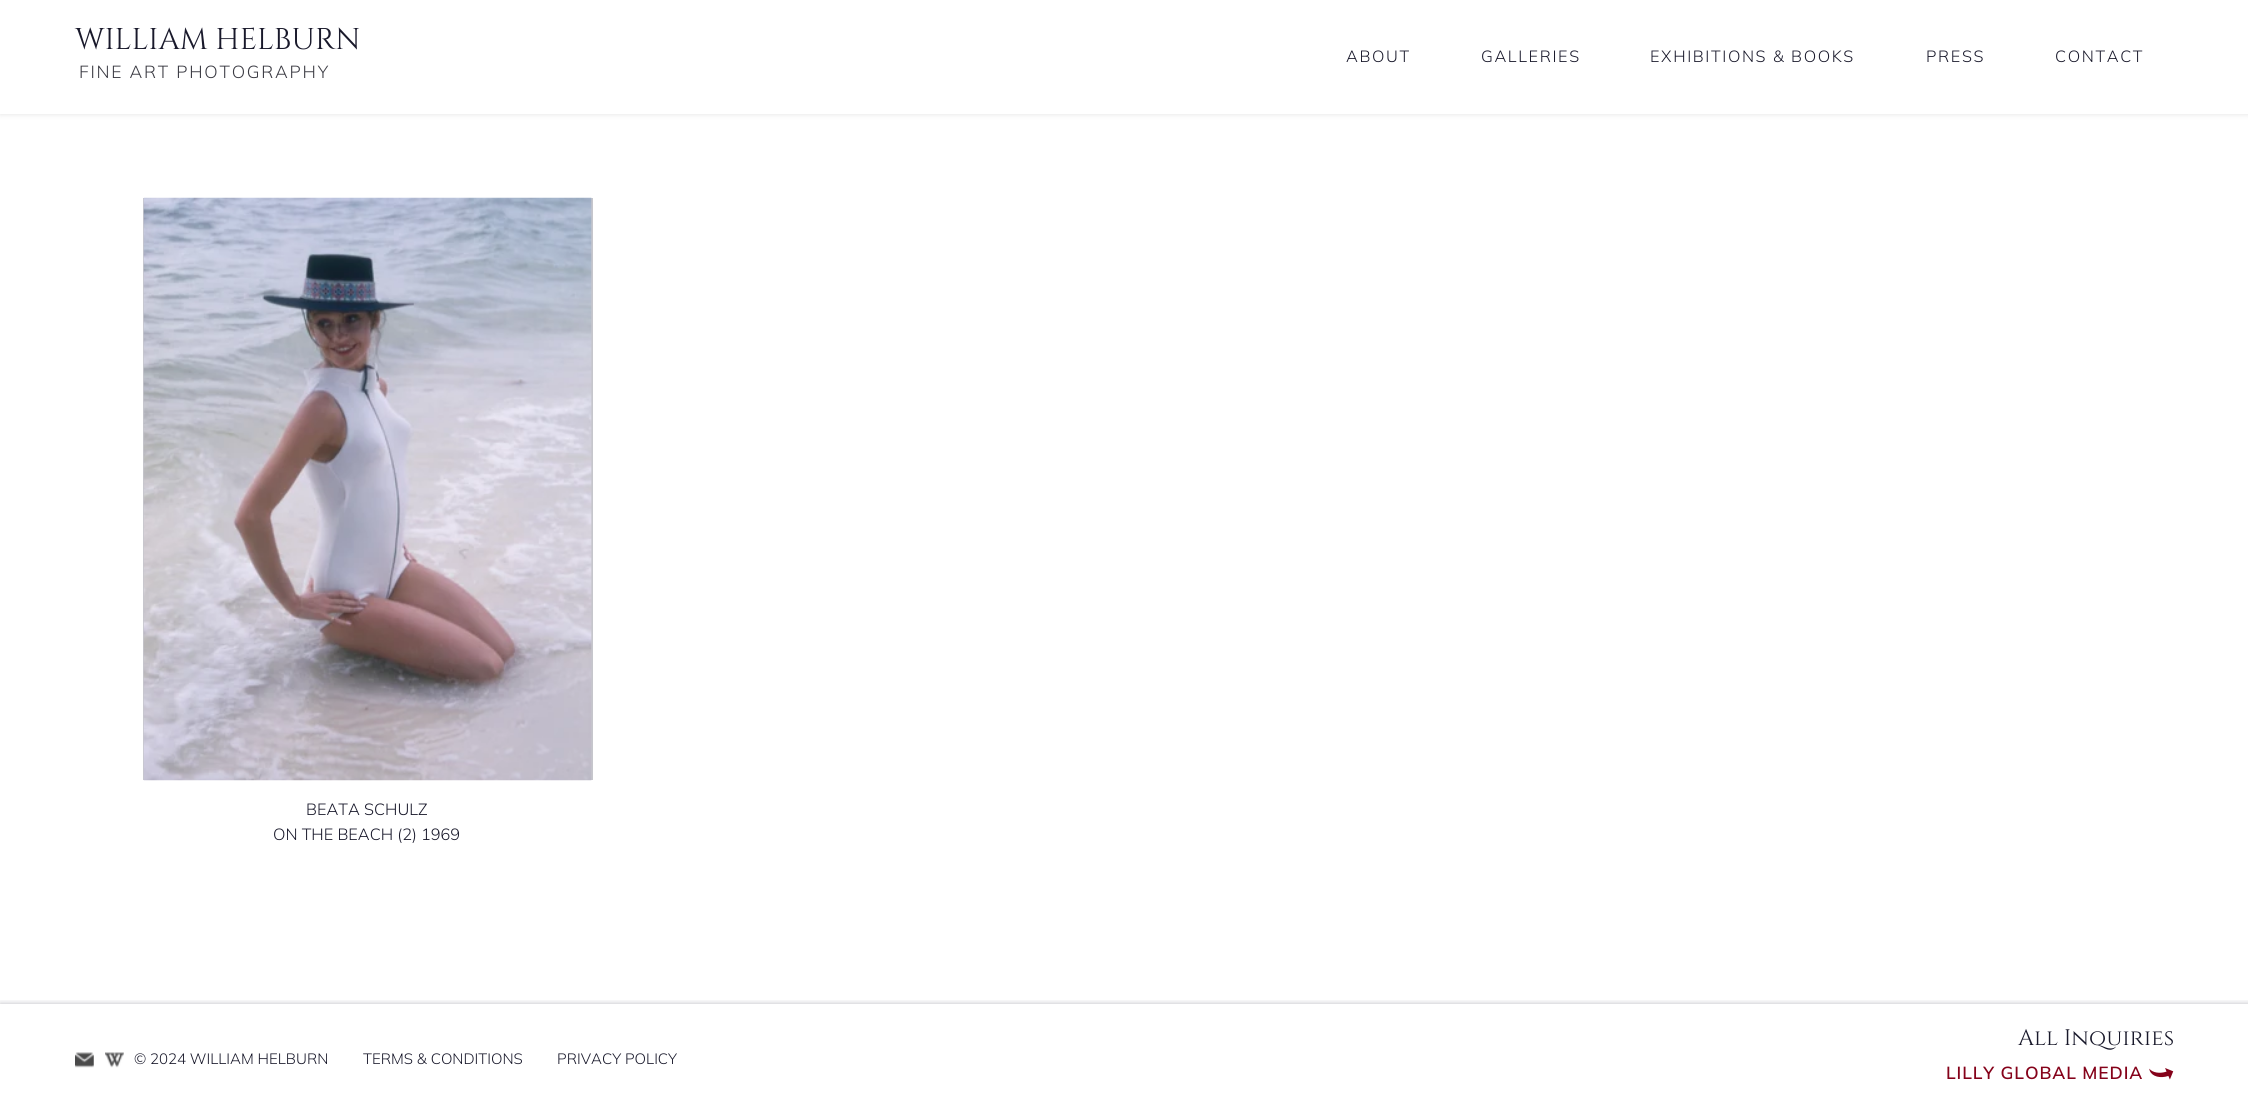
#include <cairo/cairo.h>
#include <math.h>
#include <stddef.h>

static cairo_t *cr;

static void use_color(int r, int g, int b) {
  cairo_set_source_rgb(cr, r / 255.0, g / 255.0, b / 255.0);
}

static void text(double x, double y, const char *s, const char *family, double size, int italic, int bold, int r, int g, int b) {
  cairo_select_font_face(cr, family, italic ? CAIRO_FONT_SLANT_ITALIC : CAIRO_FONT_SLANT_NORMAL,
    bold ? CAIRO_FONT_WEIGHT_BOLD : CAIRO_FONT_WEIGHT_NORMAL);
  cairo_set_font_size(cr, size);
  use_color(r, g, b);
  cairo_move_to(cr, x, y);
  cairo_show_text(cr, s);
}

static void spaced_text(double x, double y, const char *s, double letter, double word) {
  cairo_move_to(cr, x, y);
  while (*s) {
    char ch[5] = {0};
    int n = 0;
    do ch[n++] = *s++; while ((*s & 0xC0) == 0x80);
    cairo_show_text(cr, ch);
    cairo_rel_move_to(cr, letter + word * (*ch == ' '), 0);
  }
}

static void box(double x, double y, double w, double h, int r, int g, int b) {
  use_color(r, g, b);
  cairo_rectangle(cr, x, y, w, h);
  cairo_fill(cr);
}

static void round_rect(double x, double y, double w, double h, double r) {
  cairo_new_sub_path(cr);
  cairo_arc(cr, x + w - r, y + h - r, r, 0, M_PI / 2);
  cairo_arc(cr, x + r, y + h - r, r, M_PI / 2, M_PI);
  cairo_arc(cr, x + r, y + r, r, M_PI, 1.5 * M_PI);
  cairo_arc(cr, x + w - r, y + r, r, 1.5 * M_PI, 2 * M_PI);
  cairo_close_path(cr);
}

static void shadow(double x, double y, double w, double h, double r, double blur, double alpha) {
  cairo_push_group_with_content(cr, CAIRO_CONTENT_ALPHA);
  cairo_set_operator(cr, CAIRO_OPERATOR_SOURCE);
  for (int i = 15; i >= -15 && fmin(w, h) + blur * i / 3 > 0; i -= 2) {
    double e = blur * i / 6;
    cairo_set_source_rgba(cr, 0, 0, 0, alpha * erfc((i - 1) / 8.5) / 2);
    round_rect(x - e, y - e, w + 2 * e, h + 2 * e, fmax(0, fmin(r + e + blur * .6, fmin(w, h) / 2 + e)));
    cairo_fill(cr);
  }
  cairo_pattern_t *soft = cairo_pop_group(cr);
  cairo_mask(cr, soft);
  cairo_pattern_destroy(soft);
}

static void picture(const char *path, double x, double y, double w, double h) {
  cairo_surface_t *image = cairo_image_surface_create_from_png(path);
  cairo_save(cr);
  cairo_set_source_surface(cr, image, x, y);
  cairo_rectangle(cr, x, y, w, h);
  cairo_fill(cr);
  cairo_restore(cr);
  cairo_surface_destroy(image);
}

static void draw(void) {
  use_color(255, 255, 255);
  cairo_paint(cr);
  use_color(157, 157, 157);
  shadow(0, 0, 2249, 114, 0, 3, 0.3);
  box(0, 0, 2248, 114, 255, 255, 255);
  box(143, 198, 450, 582, 198, 198, 204);
  picture("img_01.png", 143, 197, 449, 584);
  cairo_save(cr);
  cairo_rectangle(cr, 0, 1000, 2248, 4);
  cairo_clip(cr);
  use_color(25, 25, 43);
  shadow(0, 1004, 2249, 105, 0, 3, 0.3);
  cairo_restore(cr);
  picture("img_02.png", 75, 1052, 19, 16);
  picture("img_03.png", 105, 1052, 19, 16);
  picture("img_04.png", 2149, 1068, 25, 12);
  text(75, 49, "WILLIAM HELBURN", "Cinzel", 30, 0, 0, 25, 25, 43);
  cairo_select_font_face(cr, "Mulish Light", CAIRO_FONT_SLANT_NORMAL, CAIRO_FONT_WEIGHT_NORMAL);
  cairo_set_font_size(cr, 17.5);
  use_color(58, 58, 66);
  spaced_text(79, 78, "FINE ART PHOTOGRAPHY", 1.75, 0);
  cairo_set_font_size(cr, 16.25);
  use_color(25, 25, 43);
  spaced_text(1346, 62, "ABOUT", 1.6, 0);
  spaced_text(1481, 62, "GALLERIES", 1.6, 0);
  spaced_text(1650, 62, "EXHIBITIONS & BOOKS", 1.6, 0);
  spaced_text(1926, 62, "PRESS", 1.6, 0);
  spaced_text(2055, 62, "CONTACT", 1.6, 0);
  text(306, 815, "BEATA SCHULZ", "Mulish Light", 16.25, 0, 0, 25, 25, 43);
  text(273, 840, "ON THE BEACH (2) 1969", "Mulish Light", 16.25, 0, 0, 25, 25, 43);
  text(134, 1064, "© 2024 WILLIAM HELBURN", "Mulish Light", 15, 0, 0, 25, 25, 43);
  text(363, 1064, "TERMS & CONDITIONS", "Mulish Light", 15, 0, 0, 25, 25, 43);
  text(557, 1064, "PRIVACY POLICY", "Mulish Light", 15, 0, 0, 25, 25, 43);
  text(2018, 1045, "All Inquiries", "Cinzel", 22.5, 0, 0, 25, 25, 43);
  cairo_select_font_face(cr, "Mulish SemiBold", CAIRO_FONT_SLANT_NORMAL, CAIRO_FONT_WEIGHT_NORMAL);
  cairo_set_font_size(cr, 17.5);
  use_color(133, 2, 26);
  spaced_text(1946, 1079, "LILLY GLOBAL MEDIA", 0.9, 0);
}

int main(void) {
  cairo_surface_t *surface = cairo_image_surface_create(CAIRO_FORMAT_RGB24, 2248, 1108);
  cr = cairo_create(surface);
  cairo_font_options_t *options = cairo_font_options_create();
  cairo_font_options_set_hint_metrics(options, CAIRO_HINT_METRICS_OFF);
  cairo_font_options_set_hint_style(options, CAIRO_HINT_STYLE_NONE);
  cairo_set_font_options(cr, options);
  cairo_set_miter_limit(cr, 4);
  draw();
  cairo_surface_write_to_png(surface, "out.png");
  cairo_font_options_destroy(options);
  cairo_destroy(cr);
  cairo_surface_destroy(surface);
  return 0;
}
